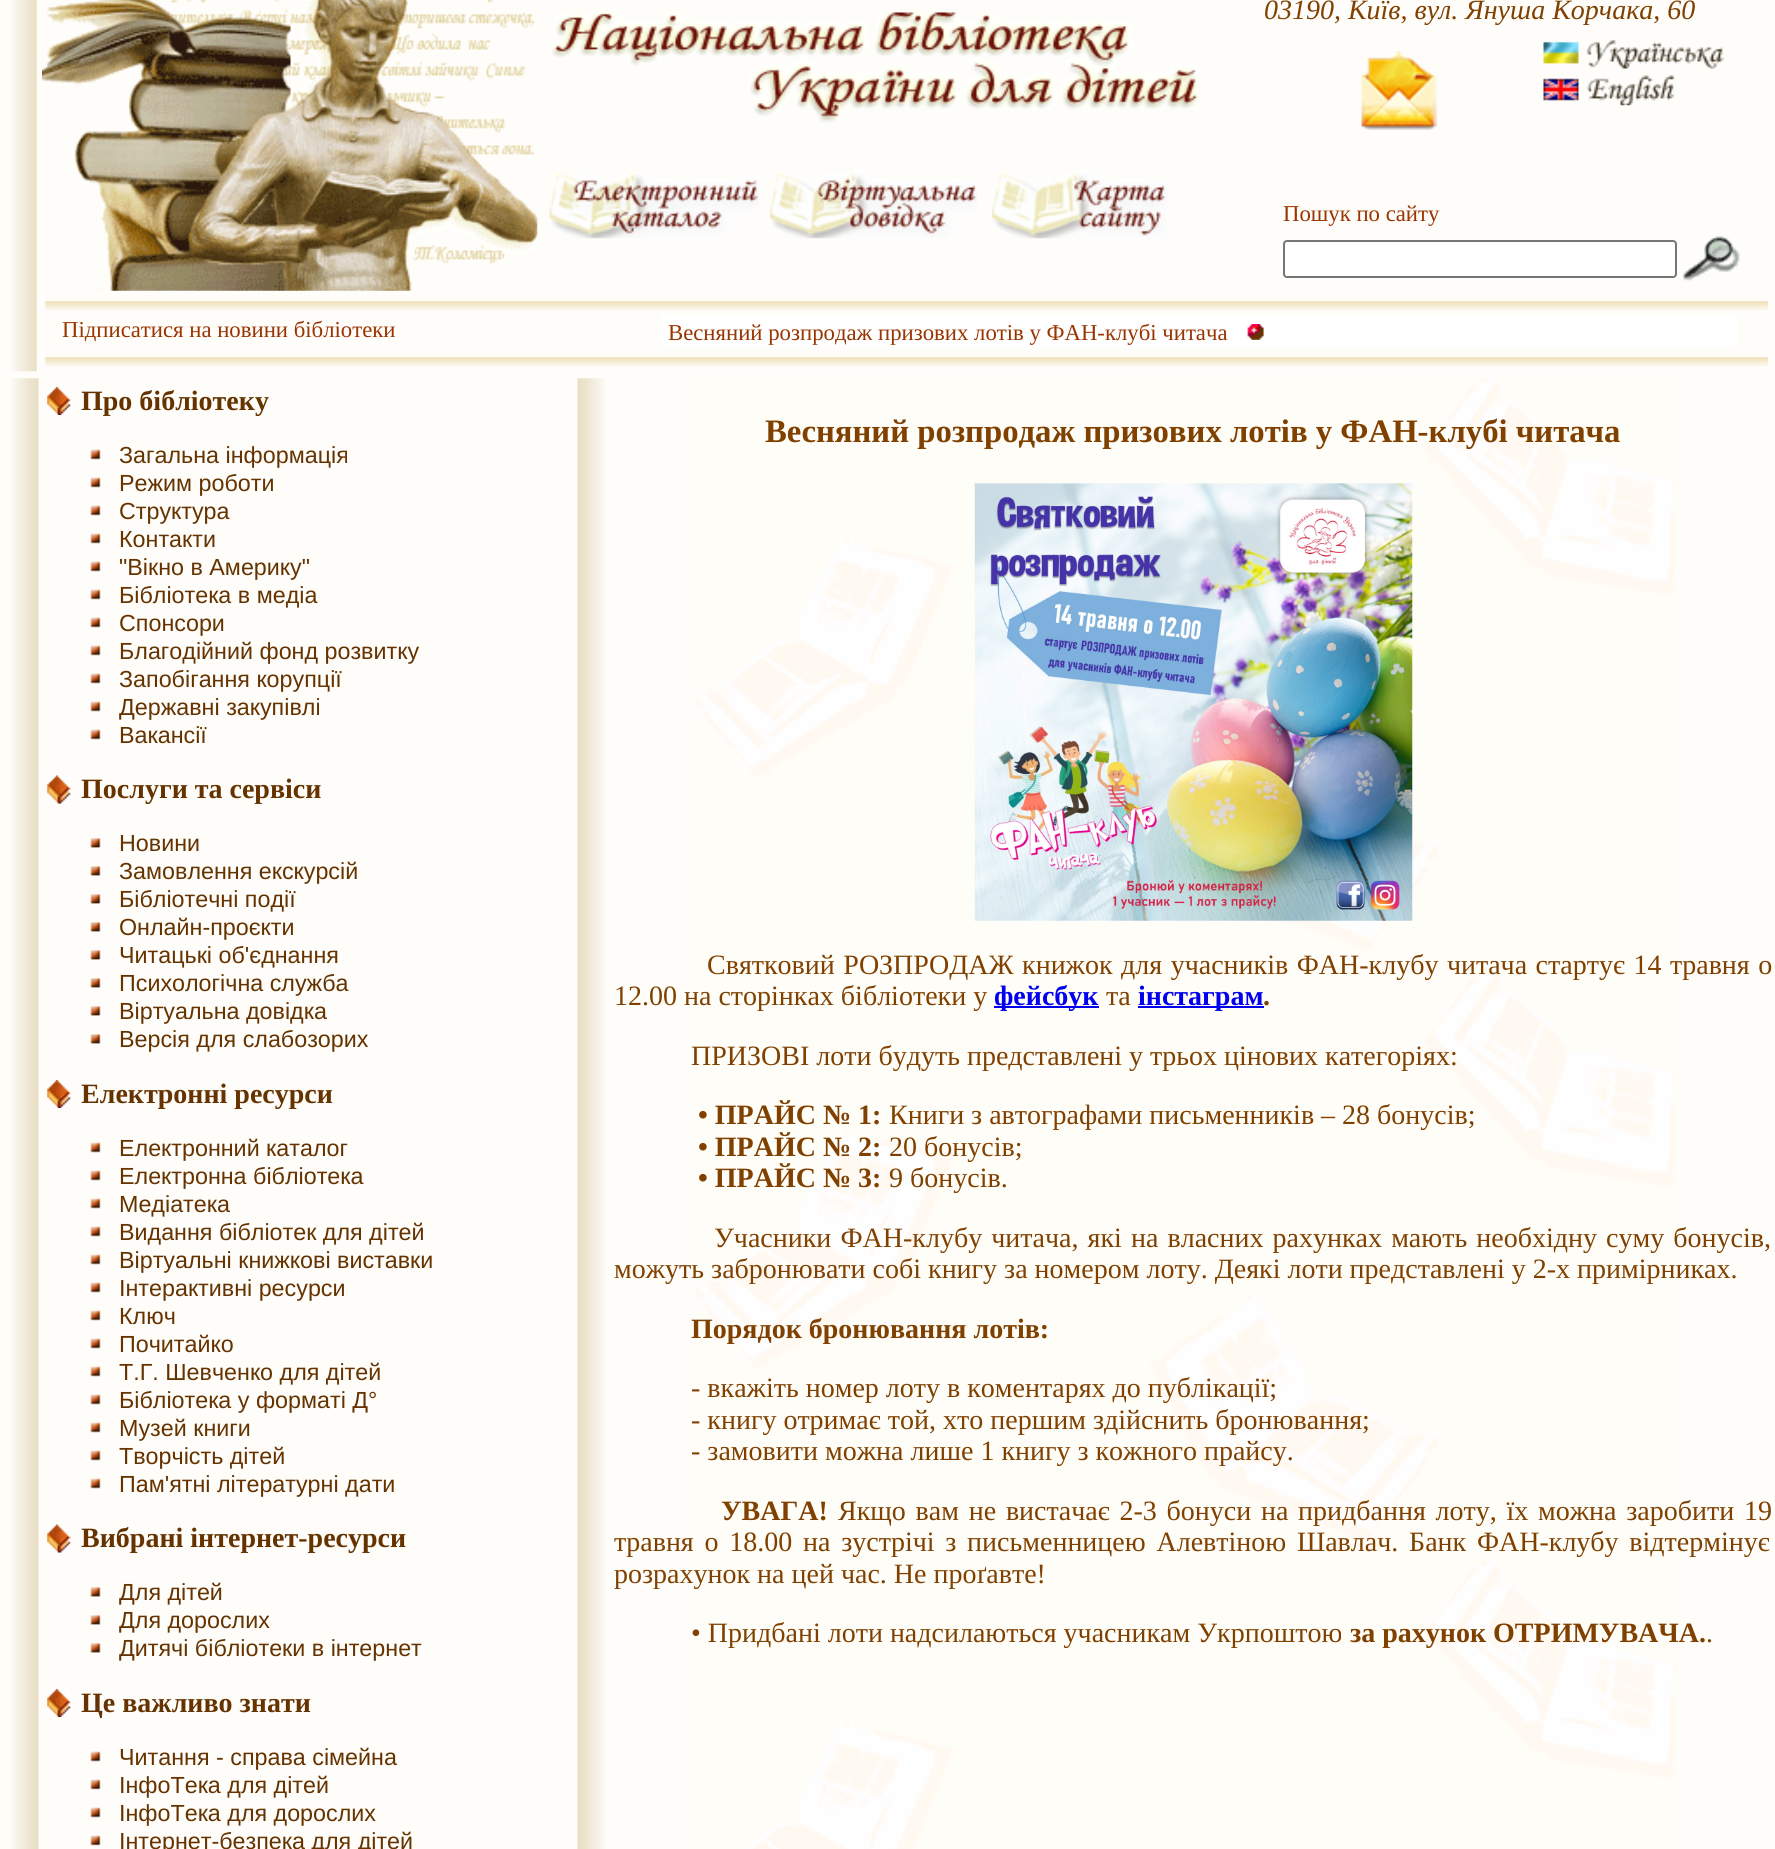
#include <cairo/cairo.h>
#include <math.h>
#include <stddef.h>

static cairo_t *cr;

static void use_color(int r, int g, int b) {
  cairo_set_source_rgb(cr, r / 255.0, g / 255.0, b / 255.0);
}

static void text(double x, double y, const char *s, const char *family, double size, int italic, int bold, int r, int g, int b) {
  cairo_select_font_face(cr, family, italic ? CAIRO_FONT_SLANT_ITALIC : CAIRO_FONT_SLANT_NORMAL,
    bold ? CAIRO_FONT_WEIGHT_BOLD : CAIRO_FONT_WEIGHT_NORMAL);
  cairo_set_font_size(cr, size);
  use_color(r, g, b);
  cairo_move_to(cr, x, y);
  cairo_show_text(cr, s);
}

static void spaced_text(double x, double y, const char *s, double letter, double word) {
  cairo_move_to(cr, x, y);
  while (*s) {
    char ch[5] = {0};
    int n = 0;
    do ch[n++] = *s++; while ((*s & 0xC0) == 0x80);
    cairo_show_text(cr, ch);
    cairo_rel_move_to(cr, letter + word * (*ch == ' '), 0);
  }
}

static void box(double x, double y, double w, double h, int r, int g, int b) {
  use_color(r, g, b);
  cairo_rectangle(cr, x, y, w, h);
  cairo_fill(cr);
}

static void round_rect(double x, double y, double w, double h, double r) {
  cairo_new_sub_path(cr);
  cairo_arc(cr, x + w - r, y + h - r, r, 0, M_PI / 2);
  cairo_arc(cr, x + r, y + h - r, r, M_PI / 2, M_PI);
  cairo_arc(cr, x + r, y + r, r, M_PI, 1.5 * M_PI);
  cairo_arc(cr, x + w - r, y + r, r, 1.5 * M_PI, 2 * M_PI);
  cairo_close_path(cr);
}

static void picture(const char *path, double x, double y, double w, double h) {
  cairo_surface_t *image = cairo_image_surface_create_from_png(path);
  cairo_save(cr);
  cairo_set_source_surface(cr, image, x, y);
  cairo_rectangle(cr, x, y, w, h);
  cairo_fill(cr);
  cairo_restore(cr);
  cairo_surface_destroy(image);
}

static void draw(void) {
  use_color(254, 253, 250);
  cairo_paint(cr);
  picture("img_01.png", 11, 0, 26, 372);
  picture("img_02.png", 42, 0, 496, 291);
  picture("img_03.png", 552, 12, 646, 111);
  picture("img_04.png", 549, 172, 210, 67);
  picture("img_05.png", 770, 169, 207, 70);
  picture("img_06.png", 992, 169, 177, 70);
  picture("img_07.png", 1361, 51, 77, 79);
  picture("img_08.png", 1543, 40, 182, 29);
  picture("img_09.png", 1543, 75, 132, 31);
  use_color(255, 255, 255);
  round_rect(1284, 241, 392, 36, 3);
  cairo_fill_preserve(cr);
  use_color(118, 118, 118);
  cairo_stroke(cr);
  picture("img_10.png", 1683, 236, 57, 45);
  picture("img_11.png", 45, 301, 1723, 9);
  box(660, 315, 1078, 32, 255, 255, 255);
  picture("img_12.png", 1247, 324, 17, 16);
  picture("img_13.png", 45, 357, 1723, 9);
  picture("img_14.png", 11, 378, 28, 1471);
  picture("img_15.png", 47, 387, 24, 28);
  picture("img_16.png", 90, 449, 11, 11);
  picture("img_16.png", 90, 477, 11, 11);
  picture("img_16.png", 90, 505, 11, 11);
  picture("img_16.png", 90, 533, 11, 11);
  picture("img_16.png", 90, 561, 11, 11);
  picture("img_16.png", 90, 589, 11, 11);
  picture("img_16.png", 90, 617, 11, 11);
  picture("img_16.png", 90, 645, 11, 11);
  picture("img_16.png", 90, 673, 11, 11);
  picture("img_16.png", 90, 701, 11, 11);
  picture("img_16.png", 90, 729, 11, 11);
  picture("img_17.png", 47, 775, 24, 29);
  picture("img_18.png", 90, 838, 11, 10);
  picture("img_18.png", 90, 866, 11, 10);
  picture("img_18.png", 90, 894, 11, 10);
  picture("img_18.png", 90, 922, 11, 10);
  picture("img_18.png", 90, 950, 11, 10);
  picture("img_18.png", 90, 978, 11, 10);
  picture("img_18.png", 90, 1006, 11, 10);
  picture("img_18.png", 90, 1034, 11, 10);
  picture("img_15.png", 47, 1080, 24, 28);
  picture("img_16.png", 90, 1142, 11, 11);
  picture("img_16.png", 90, 1170, 11, 11);
  picture("img_16.png", 90, 1198, 11, 11);
  picture("img_16.png", 90, 1226, 11, 11);
  picture("img_16.png", 90, 1254, 11, 11);
  picture("img_16.png", 90, 1282, 11, 11);
  picture("img_16.png", 90, 1310, 11, 11);
  picture("img_16.png", 90, 1338, 11, 11);
  picture("img_16.png", 90, 1366, 11, 11);
  picture("img_16.png", 90, 1394, 11, 11);
  picture("img_16.png", 90, 1422, 11, 11);
  picture("img_16.png", 90, 1450, 11, 11);
  picture("img_16.png", 90, 1478, 11, 11);
  picture("img_17.png", 47, 1524, 24, 29);
  picture("img_18.png", 90, 1587, 11, 10);
  picture("img_18.png", 90, 1615, 11, 10);
  picture("img_18.png", 90, 1643, 11, 10);
  picture("img_15.png", 47, 1689, 24, 28);
  picture("img_16.png", 90, 1751, 11, 11);
  picture("img_16.png", 90, 1779, 11, 11);
  picture("img_16.png", 90, 1807, 11, 11);
  picture("img_16.png", 90, 1835, 11, 11);
  picture("img_19.png", 577, 378, 28, 1471);
  picture("img_20.png", 695, 378, 982, 1471);
  picture("img_21.png", 974, 483, 439, 438);
  box(994, 1006, 105, 2, 0, 0, 238);
  box(1138, 1006, 126, 2, 0, 0, 238);
  text(1264, 19, "03190, Київ, вул. Януша Корчака, 60", "Liberation Serif", 28, 1, 0, 128, 64, 0);
  text(1283, 221, "Пошук по сайту", "Liberation Serif", 22.75, 0, 0, 153, 51, 0);
  text(62, 337, "Підписатися на новини бібліотеки", "Liberation Serif", 22.75, 0, 0, 153, 51, 0);
  text(668, 340, "Весняний розпродаж призових лотів у ФАН-клубі читача", "Liberation Serif", 22.75, 0, 0, 153, 51, 0);
  text(81, 410, "Про бібліотеку", "Liberation Serif", 28, 0, 1, 102, 51, 0);
  text(119, 463, "Загальна інформація", "Liberation Sans", 23.3, 0, 0, 102, 51, 0);
  text(119, 491, "Режим роботи", "Liberation Sans", 23.3, 0, 0, 102, 51, 0);
  text(119, 519, "Структура", "Liberation Sans", 23.3, 0, 0, 102, 51, 0);
  text(119, 547, "Контакти", "Liberation Sans", 23.3, 0, 0, 102, 51, 0);
  text(119, 575, "\"Вікно в Америку\"", "Liberation Sans", 23.3, 0, 0, 102, 51, 0);
  text(119, 603, "Бібліотека в медіа", "Liberation Sans", 23.3, 0, 0, 102, 51, 0);
  text(119, 631, "Спонсори", "Liberation Sans", 23.3, 0, 0, 102, 51, 0);
  text(119, 659, "Благодійний фонд розвитку", "Liberation Sans", 23.3, 0, 0, 102, 51, 0);
  text(119, 687, "Запобігання корупції", "Liberation Sans", 23.3, 0, 0, 102, 51, 0);
  text(119, 715, "Державні закупівлі", "Liberation Sans", 23.3, 0, 0, 102, 51, 0);
  text(119, 743, "Вакансії", "Liberation Sans", 23.3, 0, 0, 102, 51, 0);
  text(81, 798, "Послуги та сервіси", "Liberation Serif", 28, 0, 1, 102, 51, 0);
  text(119, 851, "Новини", "Liberation Sans", 23.3, 0, 0, 102, 51, 0);
  text(119, 879, "Замовлення екскурсій", "Liberation Sans", 23.3, 0, 0, 102, 51, 0);
  text(119, 907, "Бібліотечні події", "Liberation Sans", 23.3, 0, 0, 102, 51, 0);
  text(119, 935, "Онлайн-проєкти", "Liberation Sans", 23.3, 0, 0, 102, 51, 0);
  text(119, 963, "Читацькі об'єднання", "Liberation Sans", 23.3, 0, 0, 102, 51, 0);
  text(119, 991, "Психологічна служба", "Liberation Sans", 23.3, 0, 0, 102, 51, 0);
  text(119, 1019, "Віртуальна довідка", "Liberation Sans", 23.3, 0, 0, 102, 51, 0);
  text(119, 1047, "Версія для слабозорих", "Liberation Sans", 23.3, 0, 0, 102, 51, 0);
  text(81, 1103, "Електронні ресурси", "Liberation Serif", 28, 0, 1, 102, 51, 0);
  text(119, 1156, "Електронний каталог", "Liberation Sans", 23.3, 0, 0, 102, 51, 0);
  text(119, 1184, "Електронна бібліотека", "Liberation Sans", 23.3, 0, 0, 102, 51, 0);
  text(119, 1212, "Медіатека", "Liberation Sans", 23.3, 0, 0, 102, 51, 0);
  text(119, 1240, "Видання бібліотек для дітей", "Liberation Sans", 23.3, 0, 0, 102, 51, 0);
  text(119, 1268, "Віртуальні книжкові виставки", "Liberation Sans", 23.3, 0, 0, 102, 51, 0);
  text(119, 1296, "Інтерактивні ресурси", "Liberation Sans", 23.3, 0, 0, 102, 51, 0);
  text(119, 1324, "Ключ", "Liberation Sans", 23.3, 0, 0, 102, 51, 0);
  text(119, 1352, "Почитайко", "Liberation Sans", 23.3, 0, 0, 102, 51, 0);
  text(119, 1380, "Т.Г. Шевченко для дітей", "Liberation Sans", 23.3, 0, 0, 102, 51, 0);
  text(119, 1408, "Бібліотека у форматі Д°", "Liberation Sans", 23.3, 0, 0, 102, 51, 0);
  text(119, 1436, "Музей книги", "Liberation Sans", 23.3, 0, 0, 102, 51, 0);
  text(119, 1464, "Творчість дітей", "Liberation Sans", 23.3, 0, 0, 102, 51, 0);
  text(119, 1492, "Пам'ятні літературні дати", "Liberation Sans", 23.3, 0, 0, 102, 51, 0);
  text(81, 1547, "Вибрані інтернет-ресурси", "Liberation Serif", 28, 0, 1, 102, 51, 0);
  text(119, 1600, "Для дітей", "Liberation Sans", 23.3, 0, 0, 102, 51, 0);
  text(119, 1628, "Для дорослих", "Liberation Sans", 23.3, 0, 0, 102, 51, 0);
  text(119, 1656, "Дитячі бібліотеки в інтернет", "Liberation Sans", 23.3, 0, 0, 102, 51, 0);
  text(81, 1712, "Це важливо знати", "Liberation Serif", 28, 0, 1, 102, 51, 0);
  text(119, 1765, "Читання - справа сімейна", "Liberation Sans", 23.3, 0, 0, 102, 51, 0);
  text(119, 1793, "ІнфоТека для дітей", "Liberation Sans", 23.3, 0, 0, 102, 51, 0);
  text(119, 1821, "ІнфоТека для дорослих", "Liberation Sans", 23.3, 0, 0, 102, 51, 0);
  text(119, 1849, "Інтернет-безпека для дітей", "Liberation Sans", 23.3, 0, 0, 102, 51, 0);
  text(765, 442, "Весняний розпродаж призових лотів у ФАН-клубі читача", "Liberation Serif", 32.75, 0, 1, 128, 64, 0);
  cairo_select_font_face(cr, "Liberation Serif", CAIRO_FONT_SLANT_NORMAL, CAIRO_FONT_WEIGHT_NORMAL);
  cairo_set_font_size(cr, 28);
  spaced_text(707, 974, "Святковий РОЗПРОДАЖ книжок для учасників ФАН-клубу читача стартує 14 травня о", 0, 1.5);
  text(614, 1005, "12.00 на сторінках бібліотеки у", "Liberation Serif", 28, 0, 0, 128, 64, 0);
  text(994, 1005, "фейсбук", "Liberation Serif", 28, 0, 1, 0, 0, 238);
  text(1106, 1005, "та", "Liberation Serif", 28, 0, 0, 128, 64, 0);
  text(1138, 1005, "інстаграм", "Liberation Serif", 28, 0, 1, 0, 0, 238);
  text(1263, 1005, ".", "Liberation Serif", 28, 0, 1, 128, 64, 0);
  text(691, 1065, "ПРИЗОВІ лоти будуть представлені у трьох цінових категоріях:", "Liberation Serif", 28, 0, 0, 128, 64, 0);
  text(698, 1124, "• ПРАЙС № 1:", "Liberation Serif", 28, 0, 1, 128, 64, 0);
  text(889, 1124, "Книги з автографами письменників – 28 бонусів;", "Liberation Serif", 28, 0, 0, 128, 64, 0);
  text(698, 1156, "• ПРАЙС № 2:", "Liberation Serif", 28, 0, 1, 128, 64, 0);
  text(889, 1156, "20 бонусів;", "Liberation Serif", 28, 0, 0, 128, 64, 0);
  text(698, 1187, "• ПРАЙС № 3:", "Liberation Serif", 28, 0, 1, 128, 64, 0);
  text(889, 1187, "9 бонусів.", "Liberation Serif", 28, 0, 0, 128, 64, 0);
  spaced_text(714, 1247, "Учасники ФАН-клубу читача, які на власних рахунках мають необхідну суму бонусів,", 0, 2.1);
  text(614, 1278, "можуть забронювати собі книгу за номером лоту. Деякі лоти представлені у 2-х примірниках.", "Liberation Serif", 28, 0, 0, 128, 64, 0);
  text(691, 1338, "Порядок бронювання лотів:", "Liberation Serif", 28, 0, 1, 128, 64, 0);
  text(691, 1397, "- вкажіть номер лоту в коментарях до публікації;", "Liberation Serif", 28, 0, 0, 128, 64, 0);
  text(691, 1429, "- книгу отримає той, хто першим здійснить бронювання;", "Liberation Serif", 28, 0, 0, 128, 64, 0);
  text(691, 1460, "- замовити можна лише 1 книгу з кожного прайсу.", "Liberation Serif", 28, 0, 0, 128, 64, 0);
  text(721, 1520, "УВАГА!", "Liberation Serif", 28, 0, 1, 128, 64, 0);
  cairo_select_font_face(cr, "Liberation Serif", CAIRO_FONT_SLANT_NORMAL, CAIRO_FONT_WEIGHT_NORMAL);
  spaced_text(838, 1520, "Якщо вам не вистачає 2-3 бонуси на придбання лоту, їх можна заробити 19", 0, 2.75);
  spaced_text(614, 1551, "травня о 18.00 на зустрічі з письменницею Алевтіною Шавлач. Банк ФАН-клубу відтермінує", 0, 3.75);
  text(614, 1583, "розрахунок на цей час. Не проґавте!", "Liberation Serif", 28, 0, 0, 128, 64, 0);
  text(691, 1642, "• Придбані лоти надсилаються учасникам Укрпоштою", "Liberation Serif", 28, 0, 0, 128, 64, 0);
  text(1350, 1642, "за рахунок ОТРИМУВАЧА.", "Liberation Serif", 28, 0, 1, 128, 64, 0);
  text(1706, 1642, ".", "Liberation Serif", 28, 0, 0, 128, 64, 0);
}

int main(void) {
  cairo_surface_t *surface = cairo_image_surface_create(CAIRO_FORMAT_RGB24, 1775, 1849);
  cr = cairo_create(surface);
  cairo_font_options_t *options = cairo_font_options_create();
  cairo_font_options_set_hint_metrics(options, CAIRO_HINT_METRICS_OFF);
  cairo_font_options_set_hint_style(options, CAIRO_HINT_STYLE_NONE);
  cairo_set_font_options(cr, options);
  cairo_set_miter_limit(cr, 4);
  draw();
  cairo_surface_write_to_png(surface, "out.png");
  cairo_font_options_destroy(options);
  cairo_destroy(cr);
  cairo_surface_destroy(surface);
  return 0;
}
